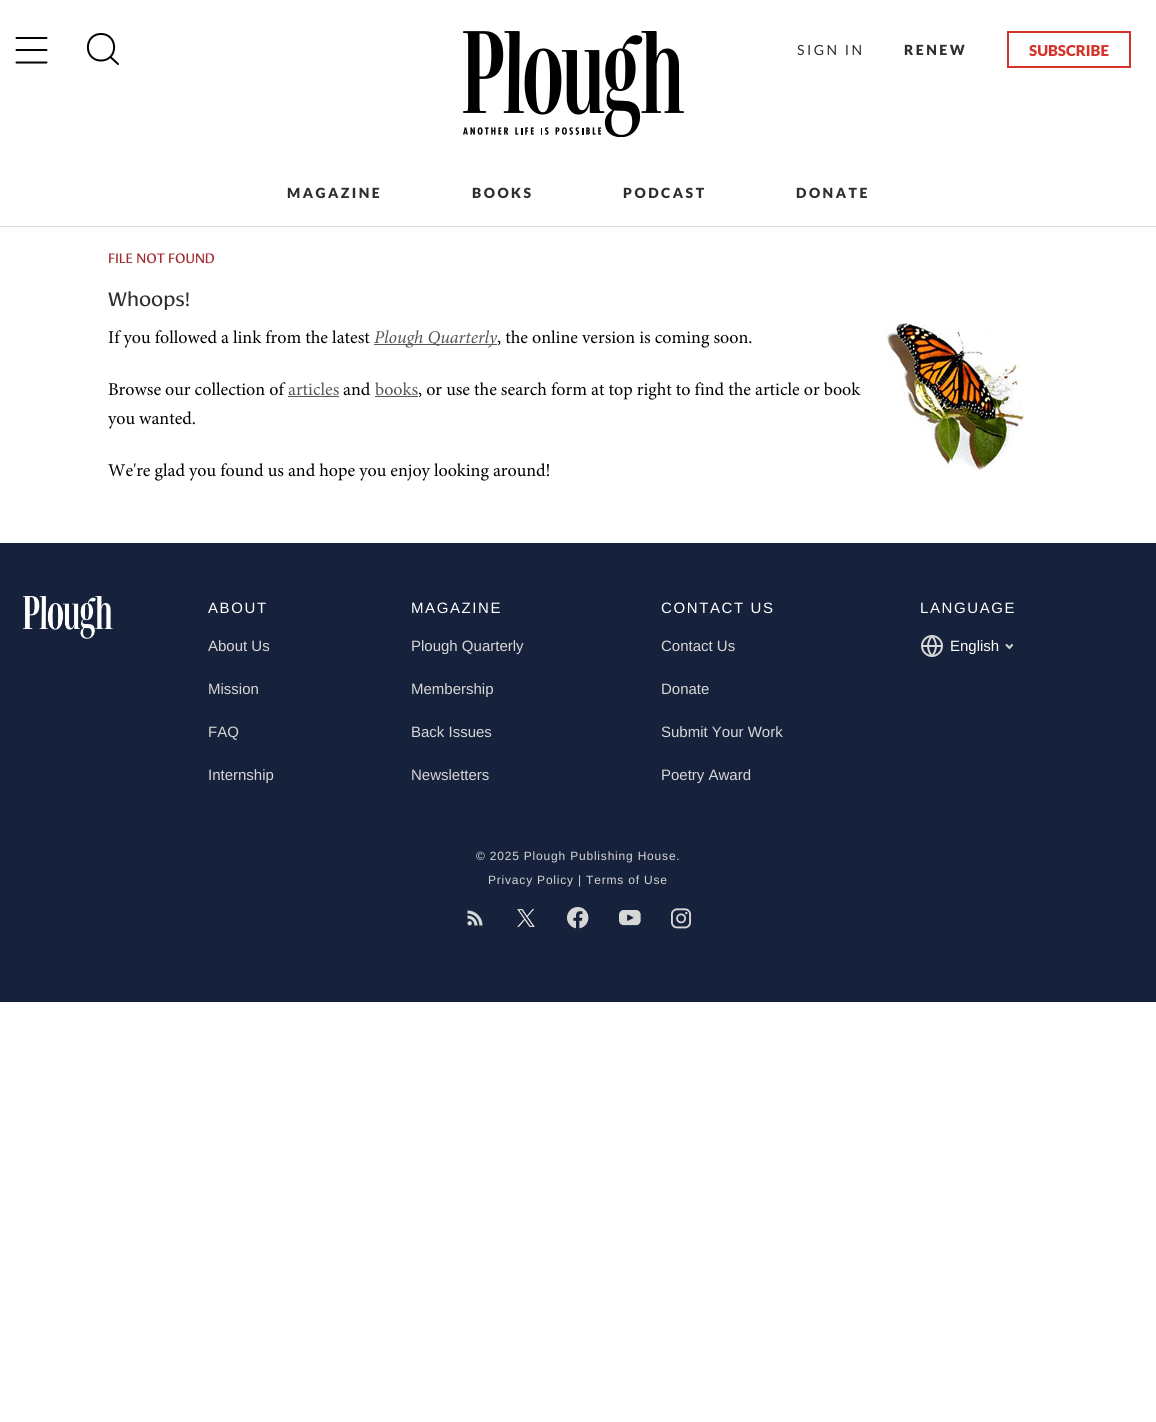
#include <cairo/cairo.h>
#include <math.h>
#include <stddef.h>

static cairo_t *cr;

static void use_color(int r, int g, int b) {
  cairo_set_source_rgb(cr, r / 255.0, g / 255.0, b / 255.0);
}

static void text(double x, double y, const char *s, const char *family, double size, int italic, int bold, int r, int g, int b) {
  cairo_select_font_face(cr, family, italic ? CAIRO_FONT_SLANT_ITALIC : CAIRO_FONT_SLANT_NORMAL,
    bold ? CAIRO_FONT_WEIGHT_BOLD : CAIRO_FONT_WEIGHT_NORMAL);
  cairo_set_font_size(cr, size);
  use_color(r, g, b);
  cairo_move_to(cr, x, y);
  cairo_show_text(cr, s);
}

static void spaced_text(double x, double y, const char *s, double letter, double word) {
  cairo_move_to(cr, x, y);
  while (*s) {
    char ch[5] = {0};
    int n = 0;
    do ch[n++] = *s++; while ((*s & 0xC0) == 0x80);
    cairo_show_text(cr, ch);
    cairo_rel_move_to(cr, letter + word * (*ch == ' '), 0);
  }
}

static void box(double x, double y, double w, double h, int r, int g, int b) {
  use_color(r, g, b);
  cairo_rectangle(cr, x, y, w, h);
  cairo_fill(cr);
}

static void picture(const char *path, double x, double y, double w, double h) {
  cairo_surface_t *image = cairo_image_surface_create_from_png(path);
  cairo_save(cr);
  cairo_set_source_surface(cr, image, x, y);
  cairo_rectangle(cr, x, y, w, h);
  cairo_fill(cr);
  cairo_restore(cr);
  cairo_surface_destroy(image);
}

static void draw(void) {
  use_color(255, 255, 255);
  cairo_paint(cr);
  box(0, 226, 1156, 1, 221, 221, 221);
  cairo_new_path(cr);
  cairo_move_to(cr, 46.5, 62.5);
  cairo_line_to(cr, 16.5, 62.5);
  cairo_move_to(cr, 46.5, 50);
  cairo_line_to(cr, 16.5, 50);
  cairo_move_to(cr, 46.5, 38);
  cairo_line_to(cr, 16.5, 38);
  use_color(0, 0, 0);
  cairo_set_line_cap(cr, CAIRO_LINE_CAP_ROUND);
  cairo_set_line_join(cr, CAIRO_LINE_JOIN_ROUND);
  cairo_stroke(cr);
  cairo_new_path(cr);
  cairo_move_to(cr, 101, 60.5);
  cairo_curve_to(cr, 118.5, 60.5, 118.5, 34, 101, 34);
  cairo_curve_to(cr, 83.5, 34, 83.5, 60.5, 101, 60.5);
  cairo_close_path(cr);
  cairo_move_to(cr, 118, 64);
  cairo_line_to(cr, 110.5, 57);
  cairo_stroke(cr);
  picture("img_01.png", 463, 31, 221, 106);
  cairo_rectangle(cr, 1008, 32, 122, 35);
  use_color(213, 51, 42);
  cairo_set_line_cap(cr, CAIRO_LINE_CAP_BUTT);
  cairo_set_line_join(cr, CAIRO_LINE_JOIN_MITER);
  cairo_stroke(cr);
  box(374, 344, 123, 1, 86, 86, 86);
  picture("img_02.png", 885, 323, 141, 148);
  box(288, 396, 51, 1, 86, 86, 86);
  box(375, 396, 43, 1, 86, 86, 86);
  box(0, 543, 1156, 459, 22, 34, 59);
  picture("img_03.png", 23, 596, 90, 43);
  picture("img_04.png", 921, 635, 22, 22);
  cairo_new_path(cr);
  cairo_move_to(cr, 1006.5, 645);
  cairo_line_to(cr, 1009.5, 648);
  cairo_line_to(cr, 1012, 645);
  use_color(216, 215, 215);
  cairo_set_line_cap(cr, CAIRO_LINE_CAP_ROUND);
  cairo_set_line_join(cr, CAIRO_LINE_JOIN_ROUND);
  cairo_stroke(cr);
  picture("img_05.png", 467, 910, 16, 16);
  picture("img_06.png", 517, 909, 18, 18);
  picture("img_07.png", 567, 907, 22, 22);
  picture("img_08.png", 619, 910, 22, 16);
  picture("img_09.png", 671, 908, 20, 21);
  cairo_select_font_face(cr, "Lato", CAIRO_FONT_SLANT_NORMAL, CAIRO_FONT_WEIGHT_NORMAL);
  cairo_set_font_size(cr, 14);
  use_color(46, 46, 46);
  spaced_text(797, 55, "SIGN IN", 2.5, 0);
  cairo_select_font_face(cr, "Lato Black", CAIRO_FONT_SLANT_NORMAL, CAIRO_FONT_WEIGHT_NORMAL);
  spaced_text(904, 55, "RENEW", 2.5, 0);
  text(1029, 56, "SUBSCRIBE", "Lato Black", 15, 0, 0, 213, 51, 42);
  cairo_set_font_size(cr, 14);
  use_color(46, 46, 46);
  spaced_text(287, 198, "MAGAZINE", 2.5, 0);
  spaced_text(472, 198, "BOOKS", 2.5, 0);
  spaced_text(623, 198, "PODCAST", 2.5, 0);
  spaced_text(796, 198, "DONATE", 2.5, 0);
  text(108, 263, "FILE NOT FOUND", "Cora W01", 14, 0, 0, 160, 43, 47);
  text(108, 306, "Whoops!", "Cora W01", 20, 0, 0, 46, 46, 46);
  text(108, 343, "If you followed a link from the latest", "Minion", 18, 0, 0, 0, 0, 0);
  text(374, 343, "Plough Quarterly", "Minion", 18, 1, 0, 86, 86, 86);
  text(497, 343, ", the online version is coming soon.", "Minion", 18, 0, 0, 0, 0, 0);
  text(108, 395, "Browse our collection of", "Minion", 18, 0, 0, 0, 0, 0);
  text(288, 395, "articles", "Minion", 18, 0, 0, 86, 86, 86);
  text(343, 395, "and", "Minion", 18, 0, 0, 0, 0, 0);
  text(375, 395, "books", "Minion", 18, 0, 0, 86, 86, 86);
  text(418, 395, ", or use the search form at top right to find the article or book", "Minion", 18, 0, 0, 0, 0, 0);
  text(108, 424, "you wanted.", "Minion", 18, 0, 0, 0, 0, 0);
  text(108, 476, "We're glad you found us and hope you enjoy looking around!", "Minion", 18, 0, 0, 0, 0, 0);
  cairo_select_font_face(cr, "Liberation Sans", CAIRO_FONT_SLANT_NORMAL, CAIRO_FONT_WEIGHT_NORMAL);
  cairo_set_font_size(cr, 15);
  use_color(255, 255, 255);
  spaced_text(208, 613, "ABOUT", 1.6, 0);
  text(208, 651, "About Us", "Liberation Sans", 15, 0, 0, 216, 215, 215);
  text(208, 694, "Mission", "Liberation Sans", 15, 0, 0, 216, 215, 215);
  text(208, 737, "FAQ", "Liberation Sans", 15, 0, 0, 216, 215, 215);
  text(208, 780, "Internship", "Liberation Sans", 15, 0, 0, 216, 215, 215);
  use_color(255, 255, 255);
  spaced_text(411, 613, "MAGAZINE", 1.6, 0);
  text(411, 651, "Plough Quarterly", "Liberation Sans", 15, 0, 0, 216, 215, 215);
  text(411, 694, "Membership", "Liberation Sans", 15, 0, 0, 216, 215, 215);
  text(411, 737, "Back Issues", "Liberation Sans", 15, 0, 0, 216, 215, 215);
  text(411, 780, "Newsletters", "Liberation Sans", 15, 0, 0, 216, 215, 215);
  use_color(255, 255, 255);
  spaced_text(661, 613, "CONTACT US", 1.6, 0);
  text(661, 651, "Contact Us", "Liberation Sans", 15, 0, 0, 216, 215, 215);
  text(661, 694, "Donate", "Liberation Sans", 15, 0, 0, 216, 215, 215);
  text(661, 737, "Submit Your Work", "Liberation Sans", 15, 0, 0, 216, 215, 215);
  text(661, 780, "Poetry Award", "Liberation Sans", 15, 0, 0, 216, 215, 215);
  use_color(255, 255, 255);
  spaced_text(920, 613, "LANGUAGE", 1.6, 0);
  text(950, 651, "English", "Liberation Sans", 15, 0, 0, 255, 255, 255);
  cairo_set_font_size(cr, 12);
  use_color(216, 215, 215);
  spaced_text(476, 860, "© 2025 Plough Publishing House.", 0.8, 0);
  spaced_text(488, 884, "Privacy Policy | Terms of Use", 0.8, 0);
}

int main(void) {
  cairo_surface_t *surface = cairo_image_surface_create(CAIRO_FORMAT_RGB24, 1156, 1422);
  cr = cairo_create(surface);
  cairo_font_options_t *options = cairo_font_options_create();
  cairo_font_options_set_hint_metrics(options, CAIRO_HINT_METRICS_OFF);
  cairo_font_options_set_hint_style(options, CAIRO_HINT_STYLE_NONE);
  cairo_set_font_options(cr, options);
  cairo_set_miter_limit(cr, 4);
  draw();
  cairo_surface_write_to_png(surface, "out.png");
  cairo_font_options_destroy(options);
  cairo_destroy(cr);
  cairo_surface_destroy(surface);
  return 0;
}
